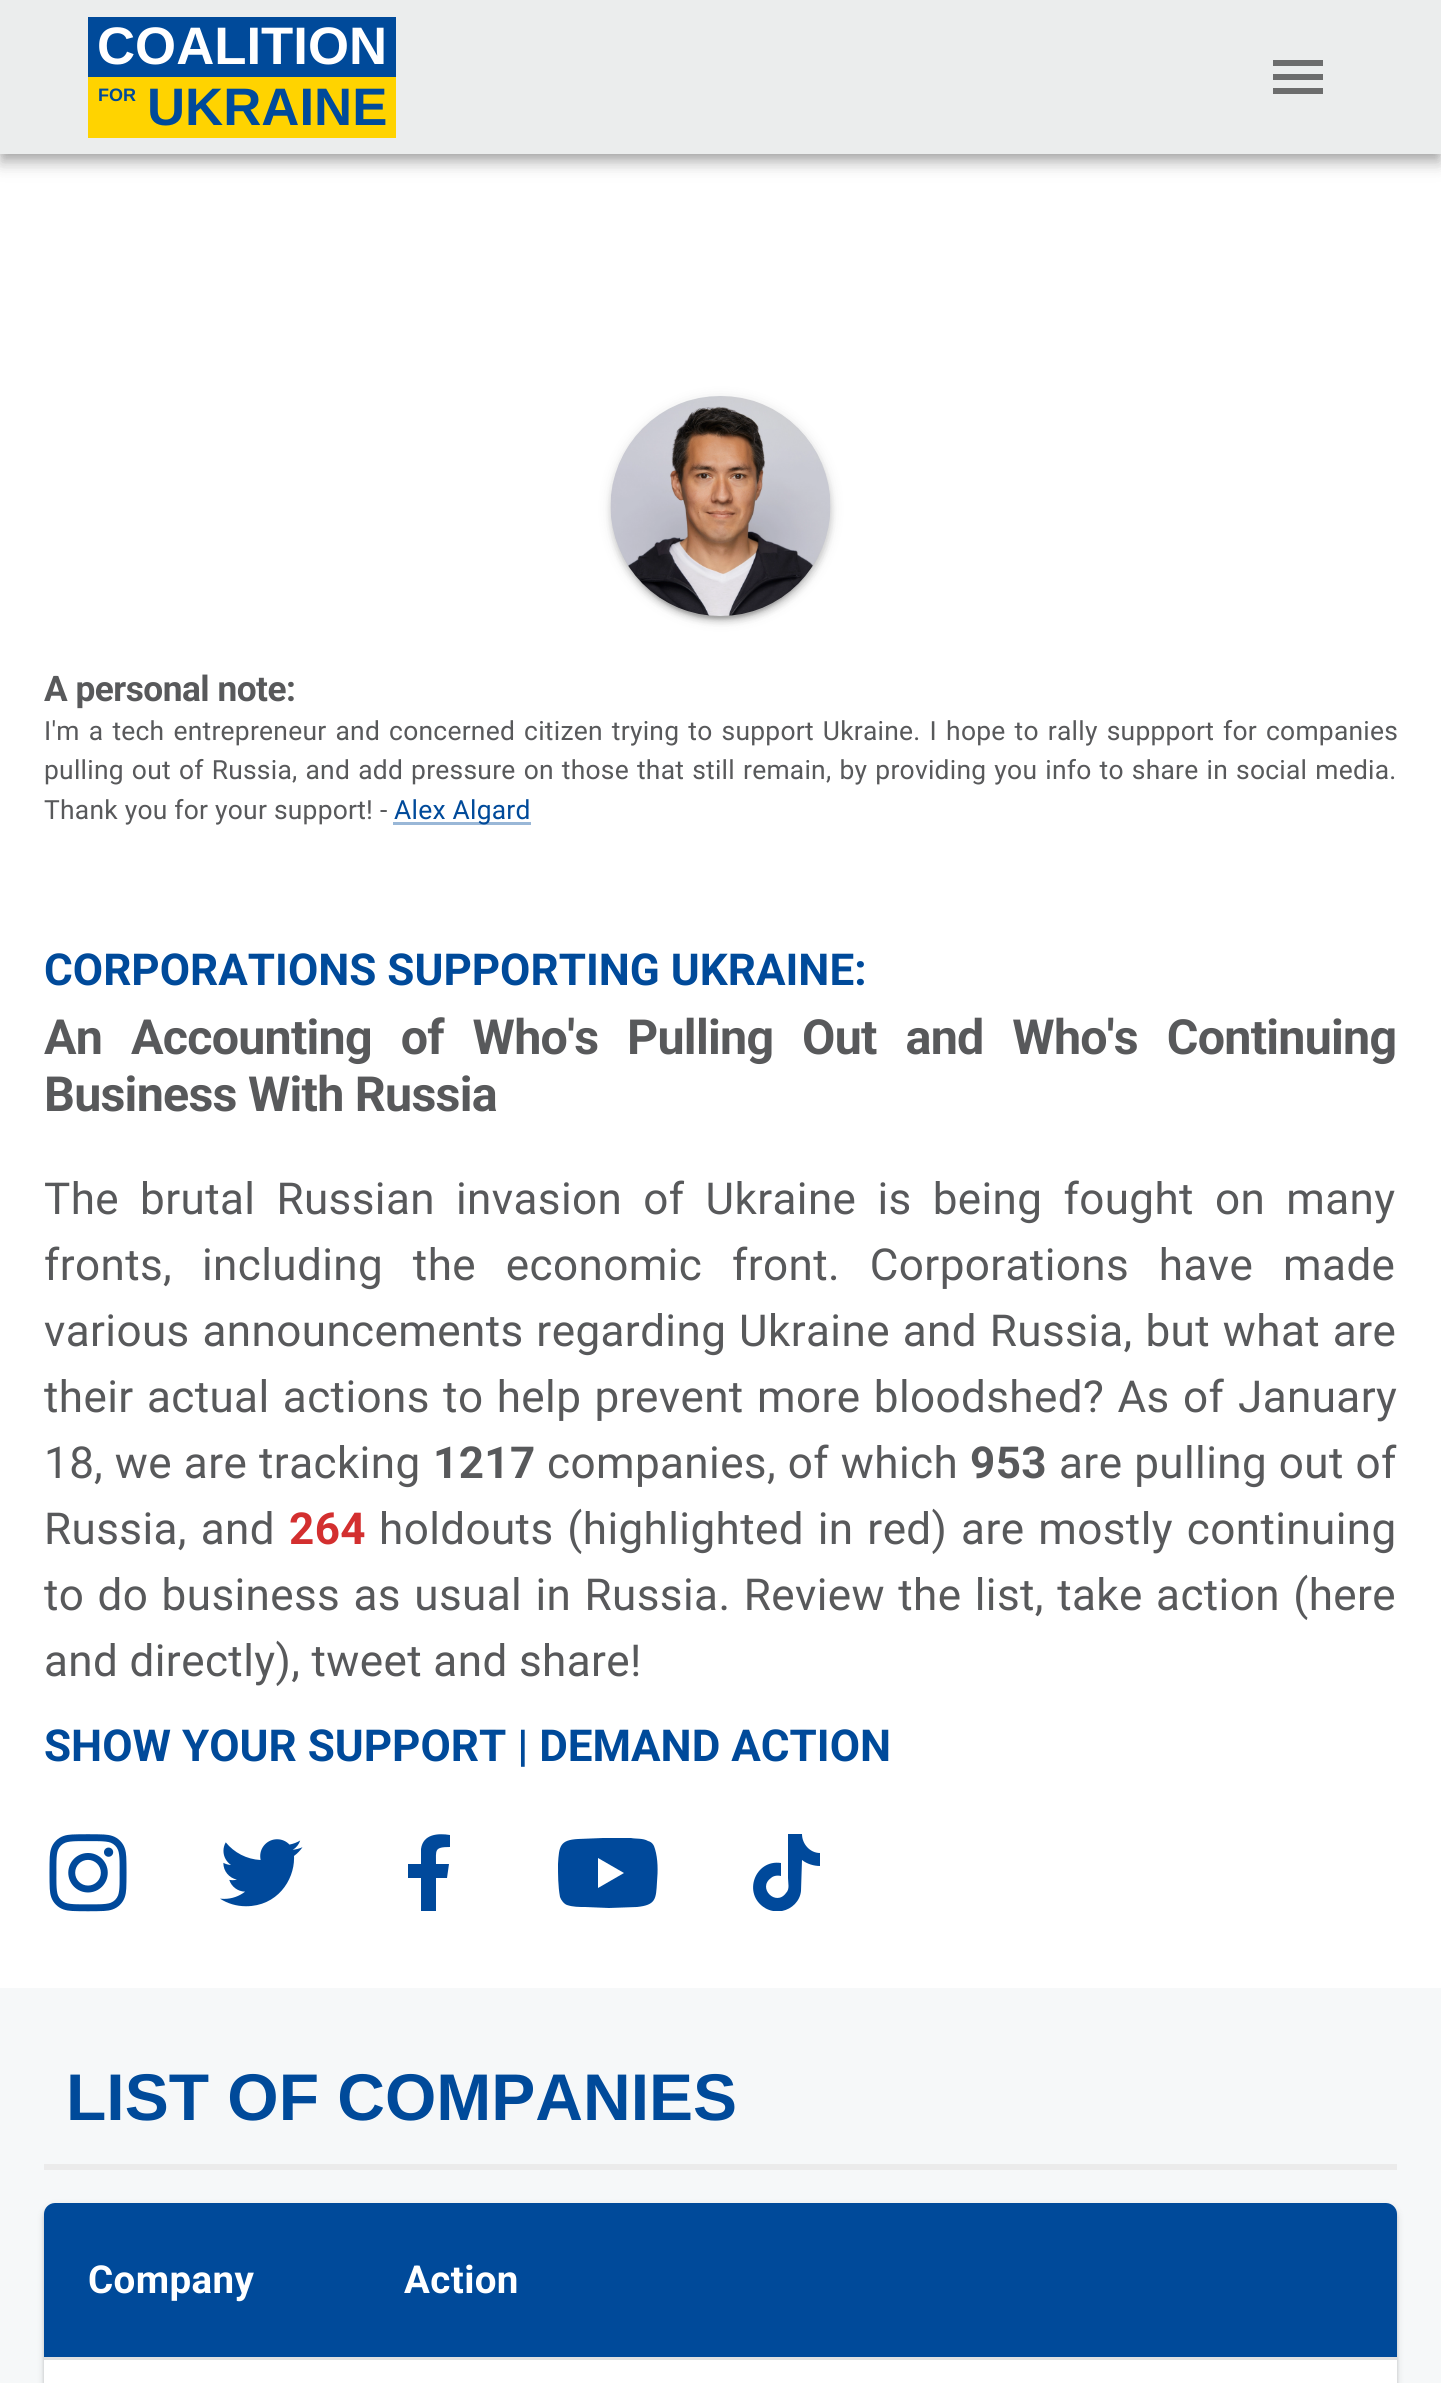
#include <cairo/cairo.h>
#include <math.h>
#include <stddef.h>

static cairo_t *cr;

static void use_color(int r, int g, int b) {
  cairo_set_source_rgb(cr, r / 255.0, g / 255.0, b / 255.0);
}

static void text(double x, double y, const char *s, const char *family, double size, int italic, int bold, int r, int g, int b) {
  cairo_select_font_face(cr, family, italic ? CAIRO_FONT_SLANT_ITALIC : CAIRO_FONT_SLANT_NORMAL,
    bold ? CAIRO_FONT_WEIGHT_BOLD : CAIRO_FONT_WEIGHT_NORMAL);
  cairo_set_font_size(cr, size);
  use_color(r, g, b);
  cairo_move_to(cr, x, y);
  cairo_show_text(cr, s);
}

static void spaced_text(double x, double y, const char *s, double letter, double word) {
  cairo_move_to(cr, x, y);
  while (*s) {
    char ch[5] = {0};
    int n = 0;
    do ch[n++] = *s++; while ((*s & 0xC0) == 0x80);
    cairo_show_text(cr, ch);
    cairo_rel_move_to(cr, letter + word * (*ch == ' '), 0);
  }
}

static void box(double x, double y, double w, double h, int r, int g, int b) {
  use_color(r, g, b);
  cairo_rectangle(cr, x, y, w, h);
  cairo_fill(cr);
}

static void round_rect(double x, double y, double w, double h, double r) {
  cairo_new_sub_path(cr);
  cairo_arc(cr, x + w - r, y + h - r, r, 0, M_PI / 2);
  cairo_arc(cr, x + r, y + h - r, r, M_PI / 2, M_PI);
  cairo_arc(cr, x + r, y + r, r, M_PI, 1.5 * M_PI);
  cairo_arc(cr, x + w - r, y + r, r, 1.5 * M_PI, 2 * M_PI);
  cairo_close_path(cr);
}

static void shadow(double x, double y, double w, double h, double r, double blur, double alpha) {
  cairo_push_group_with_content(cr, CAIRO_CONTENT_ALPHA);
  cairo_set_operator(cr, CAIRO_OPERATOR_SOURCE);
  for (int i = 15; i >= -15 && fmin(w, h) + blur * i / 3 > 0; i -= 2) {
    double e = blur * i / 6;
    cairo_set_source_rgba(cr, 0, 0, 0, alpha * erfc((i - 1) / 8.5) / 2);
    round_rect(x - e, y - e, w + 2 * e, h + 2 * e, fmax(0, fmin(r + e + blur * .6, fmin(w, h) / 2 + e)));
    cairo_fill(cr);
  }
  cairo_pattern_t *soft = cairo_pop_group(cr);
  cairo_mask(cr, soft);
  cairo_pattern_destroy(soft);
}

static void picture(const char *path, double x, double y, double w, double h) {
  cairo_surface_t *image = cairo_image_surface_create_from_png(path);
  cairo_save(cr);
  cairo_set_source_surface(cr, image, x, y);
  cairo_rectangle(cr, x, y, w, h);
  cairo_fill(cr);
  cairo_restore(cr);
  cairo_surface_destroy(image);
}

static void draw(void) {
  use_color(246, 248, 249);
  cairo_paint(cr);
  box(0, 154, 1441, 1834, 255, 255, 255);
  use_color(0, 0, 0);
  shadow(0, 3, 1441, 154, 0, 14, 0.12);
  shadow(0, 11, 1441, 154, 0, 7, 0.14);
  shadow(3, 8, 1435, 149, 0, 5.5, 0.2);
  box(0, 0, 1441, 154, 235, 237, 237);
  box(88, 17, 308, 60, 0, 74, 154);
  box(88, 77, 308, 61, 255, 211, 0);
  use_color(108, 109, 109);
  cairo_new_path(cr);
  cairo_move_to(cr, 1273, 94);
  cairo_line_to(cr, 1323, 94);
  cairo_line_to(cr, 1323, 88);
  cairo_line_to(cr, 1273, 88);
  cairo_close_path(cr);
  cairo_move_to(cr, 1273, 80);
  cairo_line_to(cr, 1323, 80);
  cairo_line_to(cr, 1323, 74);
  cairo_line_to(cr, 1273, 74);
  cairo_close_path(cr);
  cairo_move_to(cr, 1273, 60);
  cairo_line_to(cr, 1273, 66);
  cairo_line_to(cr, 1323, 66);
  cairo_line_to(cr, 1323, 60);
  cairo_close_path(cr);
  cairo_fill(cr);
  use_color(0, 0, 0);
  shadow(611, 399, 220, 220, 110, 7, 0.12);
  shadow(611, 402, 220, 220, 110, 3, 0.14);
  shadow(616, 410, 209, 209, 104.5, 1.5, 0.2);
  picture("img_01.png", 610, 396, 221, 220);
  box(393, 822, 138, 3, 153, 183, 215);
  picture("img_02.png", 49, 1834, 78, 78);
  picture("img_03.png", 220, 1839, 83, 68);
  use_color(0, 73, 155);
  cairo_new_path(cr);
  cairo_move_to(cr, 447, 1878);
  cairo_line_to(cr, 449, 1864);
  cairo_line_to(cr, 436, 1864);
  cairo_curve_to(cr, 436, 1850, 434, 1847, 450, 1847);
  cairo_line_to(cr, 450, 1835);
  cairo_curve_to(cr, 438, 1833, 423, 1834, 421, 1849);
  cairo_line_to(cr, 421, 1864);
  cairo_line_to(cr, 408, 1864);
  cairo_line_to(cr, 408, 1878);
  cairo_line_to(cr, 421, 1878);
  cairo_line_to(cr, 421, 1911);
  cairo_line_to(cr, 436, 1911);
  cairo_line_to(cr, 436, 1878);
  cairo_close_path(cr);
  cairo_fill(cr);
  cairo_new_path(cr);
  cairo_move_to(cr, 655, 1849);
  cairo_curve_to(cr, 654, 1845, 652, 1842, 648, 1841);
  cairo_curve_to(cr, 643, 1838, 636, 1839, 631, 1838);
  cairo_line_to(cr, 603, 1838);
  cairo_line_to(cr, 578, 1839);
  cairo_curve_to(cr, 560, 1840, 559, 1846, 558, 1864);
  cairo_curve_to(cr, 558, 1875, 558, 1886, 560, 1897);
  cairo_curve_to(cr, 561, 1900, 564, 1904, 567, 1905);
  cairo_curve_to(cr, 573, 1907, 579, 1907, 585, 1907);
  cairo_line_to(cr, 609, 1908);
  cairo_line_to(cr, 637, 1907);
  cairo_curve_to(cr, 656, 1905, 656, 1899, 657, 1882);
  cairo_curve_to(cr, 658, 1871, 658, 1859, 655, 1849);
  cairo_close_path(cr);
  cairo_move_to(cr, 598, 1888);
  cairo_line_to(cr, 598, 1858);
  cairo_line_to(cr, 624, 1873);
  cairo_close_path(cr);
  cairo_fill(cr);
  cairo_save(cr);
  cairo_rectangle(cr, 748, 1834, 77, 77);
  cairo_clip(cr);
  cairo_new_path(cr);
  cairo_move_to(cr, 820, 1866);
  cairo_curve_to(cr, 814, 1866, 807, 1864, 802, 1860);
  cairo_line_to(cr, 801, 1891);
  cairo_curve_to(cr, 800, 1901, 792, 1909, 782, 1911);
  cairo_curve_to(cr, 776, 1912, 770, 1911, 765, 1908);
  cairo_curve_to(cr, 742, 1894, 755, 1859, 781, 1863);
  cairo_line_to(cr, 781, 1876);
  cairo_curve_to(cr, 777, 1875, 773, 1876, 771, 1878);
  cairo_curve_to(cr, 757, 1888, 776, 1907, 786, 1893);
  cairo_curve_to(cr, 790, 1889, 788, 1883, 788, 1878);
  cairo_line_to(cr, 788, 1834);
  cairo_line_to(cr, 802, 1834);
  cairo_curve_to(cr, 802, 1844, 810, 1853, 820, 1853);
  cairo_close_path(cr);
  cairo_fill(cr);
  cairo_restore(cr);
  box(44, 2164, 1353, 6, 235, 235, 235);
  use_color(0, 0, 0);
  shadow(44, 2206, 1353, 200, 11, 4, 0.12);
  shadow(44, 2206, 1353, 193, 11, 1.5, 0.14);
  use_color(255, 255, 255);
  round_rect(44, 2203, 1353, 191, 11);
  cairo_fill(cr);
  use_color(0, 74, 154);
  cairo_new_path(cr);
  cairo_move_to(cr, 55, 2203);
  cairo_line_to(cr, 360, 2203);
  cairo_line_to(cr, 360, 2360);
  cairo_line_to(cr, 44, 2360);
  cairo_line_to(cr, 44, 2214);
  cairo_curve_to(cr, 44, 2208, 49, 2203, 55, 2203);
  cairo_close_path(cr);
  cairo_fill(cr);
  box(44, 2357, 316, 3, 224, 224, 224);
  use_color(0, 74, 154);
  cairo_new_path(cr);
  cairo_move_to(cr, 360, 2203);
  cairo_line_to(cr, 1386, 2203);
  cairo_curve_to(cr, 1392, 2203, 1397, 2208, 1397, 2214);
  cairo_line_to(cr, 1397, 2360);
  cairo_line_to(cr, 360, 2360);
  cairo_close_path(cr);
  cairo_fill(cr);
  box(360, 2357, 1037, 3, 224, 224, 224);
  text(97, 64, "COALITION", "Liberation Sans", 52.75, 0, 1, 255, 255, 255);
  text(98, 101, "FOR", "Liberation Sans", 18, 0, 1, 0, 74, 154);
  text(147, 125, "UKRAINE", "Liberation Sans", 52.75, 0, 1, 0, 74, 154);
  cairo_select_font_face(cr, "Roboto", CAIRO_FONT_SLANT_NORMAL, CAIRO_FONT_WEIGHT_BOLD);
  cairo_set_font_size(cr, 35.25);
  use_color(88, 89, 91);
  spaced_text(44, 701, "A personal note:", -0.5, 0);
  cairo_select_font_face(cr, "Roboto", CAIRO_FONT_SLANT_NORMAL, CAIRO_FONT_WEIGHT_NORMAL);
  cairo_set_font_size(cr, 26.4);
  spaced_text(44, 740, "I'm a tech entrepreneur and concerned citizen trying to support Ukraine. I hope to rally suppport for companies", 0.25, 2.25);
  spaced_text(44, 779, "pulling out of Russia, and add pressure on those that still remain, by providing you info to share in social media.", 0.25, 1.25);
  spaced_text(44, 819, "Thank you for your support! -", 0.25, 0);
  use_color(0, 74, 154);
  spaced_text(394, 819, "Alex Algard", 0.25, 0);
  text(44, 985, "CORPORATIONS SUPPORTING UKRAINE:", "Roboto", 44, 0, 1, 0, 74, 154);
  cairo_set_font_size(cr, 48.4);
  use_color(88, 89, 91);
  spaced_text(44, 1054, "An Accounting of Who's Pulling Out and Who's Continuing", -0.75, 17.5);
  spaced_text(44, 1111, "Business With Russia", -0.75, 0);
  cairo_select_font_face(cr, "Roboto", CAIRO_FONT_SLANT_NORMAL, CAIRO_FONT_WEIGHT_NORMAL);
  cairo_set_font_size(cr, 44);
  spaced_text(44, 1214, "The brutal Russian invasion of Ukraine is being fought on many", 0.4, 9.75);
  spaced_text(44, 1280, "fronts, including the economic front. Corporations have made", 0.4, 18.5);
  spaced_text(44, 1346, "various announcements regarding Ukraine and Russia, but what are", 0.4, 1.5);
  spaced_text(44, 1412, "their actual actions to help prevent more bloodshed? As of", 0.4, 2);
  spaced_text(1238, 1412, "January", 0.4, 0);
  spaced_text(44, 1478, "18", 0.4, 0);
  spaced_text(94, 1478, ", we are tracking", 0.4, 0.5);
  cairo_select_font_face(cr, "Roboto", CAIRO_FONT_SLANT_NORMAL, CAIRO_FONT_WEIGHT_BOLD);
  spaced_text(433, 1478, "1217", 0.4, 0);
  cairo_select_font_face(cr, "Roboto", CAIRO_FONT_SLANT_NORMAL, CAIRO_FONT_WEIGHT_NORMAL);
  spaced_text(547, 1478, "companies, of which", 0.4, 0.5);
  cairo_select_font_face(cr, "Roboto", CAIRO_FONT_SLANT_NORMAL, CAIRO_FONT_WEIGHT_BOLD);
  spaced_text(970, 1478, "953", 0.4, 0);
  cairo_select_font_face(cr, "Roboto", CAIRO_FONT_SLANT_NORMAL, CAIRO_FONT_WEIGHT_NORMAL);
  spaced_text(1059, 1478, "are pulling out of", 0.4, 0.5);
  spaced_text(44, 1544, "Russia, and", 0.4, 2.5);
  cairo_select_font_face(cr, "Roboto", CAIRO_FONT_SLANT_NORMAL, CAIRO_FONT_WEIGHT_BOLD);
  use_color(211, 47, 47);
  spaced_text(289, 1544, "264", 0.4, 0);
  cairo_select_font_face(cr, "Roboto", CAIRO_FONT_SLANT_NORMAL, CAIRO_FONT_WEIGHT_NORMAL);
  use_color(88, 89, 91);
  spaced_text(379, 1544, "holdouts (highlighted in red) are mostly continuing", 0.4, 2.5);
  spaced_text(44, 1610, "to do business as usual in Russia. Review the list, take action (here", 0.4, 2);
  spaced_text(44, 1676, "and directly), tweet and share!", 0.4, 0);
  text(44, 1761, "SHOW YOUR SUPPORT | DEMAND ACTION", "Roboto", 44, 0, 1, 0, 74, 154);
  text(66, 2120, "LIST OF COMPANIES", "Liberation Sans", 66, 0, 1, 0, 74, 154);
  cairo_select_font_face(cr, "Roboto", CAIRO_FONT_SLANT_NORMAL, CAIRO_FONT_WEIGHT_BOLD);
  cairo_set_font_size(cr, 38.5);
  use_color(255, 255, 255);
  spaced_text(88, 2293, "Company", 0.4, 0);
  spaced_text(404, 2293, "Action", 0.4, 0);
}

int main(void) {
  cairo_surface_t *surface = cairo_image_surface_create(CAIRO_FORMAT_RGB24, 1441, 2383);
  cr = cairo_create(surface);
  cairo_font_options_t *options = cairo_font_options_create();
  cairo_font_options_set_hint_metrics(options, CAIRO_HINT_METRICS_OFF);
  cairo_font_options_set_hint_style(options, CAIRO_HINT_STYLE_NONE);
  cairo_set_font_options(cr, options);
  cairo_set_miter_limit(cr, 4);
  draw();
  cairo_surface_write_to_png(surface, "out.png");
  cairo_font_options_destroy(options);
  cairo_destroy(cr);
  cairo_surface_destroy(surface);
  return 0;
}
